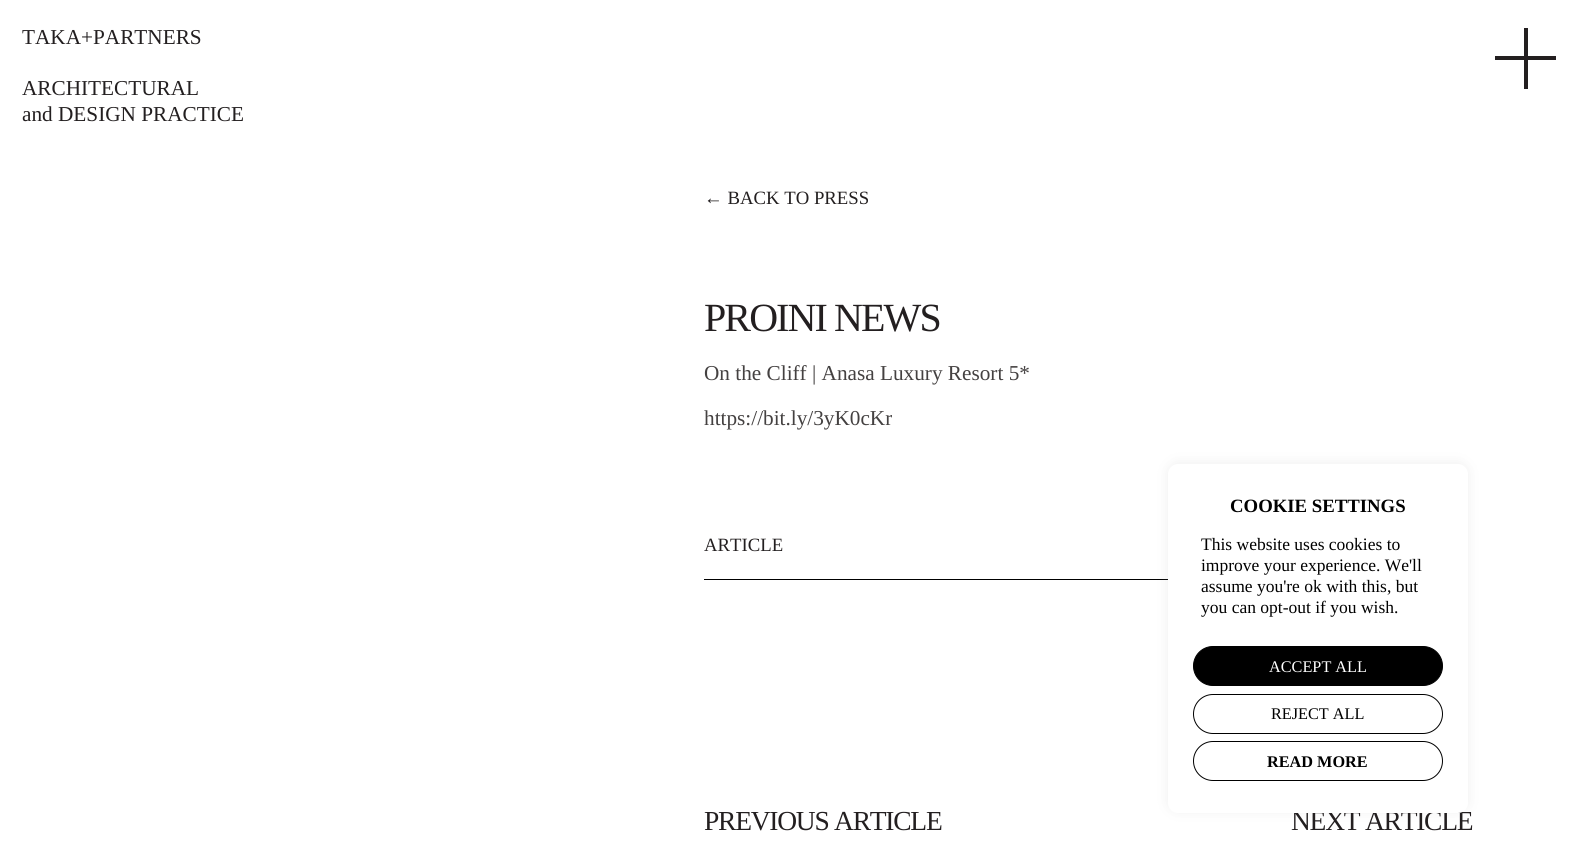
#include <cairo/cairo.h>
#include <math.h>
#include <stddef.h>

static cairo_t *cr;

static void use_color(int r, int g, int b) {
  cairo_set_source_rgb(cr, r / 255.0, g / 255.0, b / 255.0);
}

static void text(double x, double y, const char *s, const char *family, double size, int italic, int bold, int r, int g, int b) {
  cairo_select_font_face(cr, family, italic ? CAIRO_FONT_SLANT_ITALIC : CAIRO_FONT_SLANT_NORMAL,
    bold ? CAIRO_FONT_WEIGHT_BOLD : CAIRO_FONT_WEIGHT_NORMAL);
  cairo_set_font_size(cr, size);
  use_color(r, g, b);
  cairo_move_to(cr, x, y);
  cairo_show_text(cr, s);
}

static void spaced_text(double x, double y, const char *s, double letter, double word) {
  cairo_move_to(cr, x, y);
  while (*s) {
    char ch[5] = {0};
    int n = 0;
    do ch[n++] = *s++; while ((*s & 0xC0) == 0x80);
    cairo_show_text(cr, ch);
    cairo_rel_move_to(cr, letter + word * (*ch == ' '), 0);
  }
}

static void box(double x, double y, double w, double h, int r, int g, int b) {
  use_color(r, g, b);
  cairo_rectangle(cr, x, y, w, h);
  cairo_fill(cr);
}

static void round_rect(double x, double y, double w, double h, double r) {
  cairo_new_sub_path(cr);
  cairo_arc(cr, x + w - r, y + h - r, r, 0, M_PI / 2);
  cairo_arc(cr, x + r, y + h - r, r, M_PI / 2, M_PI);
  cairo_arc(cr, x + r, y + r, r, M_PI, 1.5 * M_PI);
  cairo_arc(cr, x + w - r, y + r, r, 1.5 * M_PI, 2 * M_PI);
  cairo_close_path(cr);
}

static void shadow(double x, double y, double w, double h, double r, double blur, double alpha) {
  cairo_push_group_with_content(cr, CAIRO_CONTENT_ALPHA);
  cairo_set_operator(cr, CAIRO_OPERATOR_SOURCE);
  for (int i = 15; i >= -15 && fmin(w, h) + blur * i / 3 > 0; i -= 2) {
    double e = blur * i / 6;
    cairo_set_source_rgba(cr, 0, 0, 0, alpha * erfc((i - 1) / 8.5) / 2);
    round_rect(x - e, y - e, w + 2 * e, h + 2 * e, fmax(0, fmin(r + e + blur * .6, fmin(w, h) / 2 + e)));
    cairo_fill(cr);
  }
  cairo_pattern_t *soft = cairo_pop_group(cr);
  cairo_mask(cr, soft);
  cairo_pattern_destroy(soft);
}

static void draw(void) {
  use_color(255, 255, 255);
  cairo_paint(cr);
  box(1495, 56, 61, 4, 35, 31, 32);
  box(1524, 28, 4, 61, 35, 31, 32);
  box(704, 579, 464, 1, 0, 0, 0);
  use_color(172, 171, 171);
  shadow(1168, 463, 300, 348, 10, 6, 0.2);
  text(22, 44, "TAKA+PARTNERS", "Liberation Serif", 21.25, 0, 0, 35, 31, 32);
  text(22, 95, "ARCHITECTURAL", "Liberation Serif", 21.25, 0, 0, 35, 31, 32);
  text(22, 121, "and DESIGN PRACTICE", "Liberation Serif", 21.25, 0, 0, 35, 31, 32);
  text(704, 204, "← BACK TO PRESS", "Liberation Serif", 18.75, 0, 0, 35, 31, 32);
  cairo_set_font_size(cr, 40);
  spaced_text(704, 331, "PROINI NEWS", -1.9, 0);
  text(704, 380, "On the Cliff | Anasa Luxury Resort 5*", "Liberation Serif", 21.25, 0, 0, 68, 65, 65);
  text(704, 425, "https://bit.ly/3yK0cKr", "Liberation Serif", 21.25, 0, 0, 68, 65, 65);
  text(704, 551, "ARTICLE", "Liberation Serif", 18.75, 0, 0, 35, 31, 32);
  cairo_set_font_size(cr, 27.5);
  spaced_text(704, 830, "PREVIOUS ARTICLE", -1.25, 0);
  spaced_text(1291, 830, "NEXT ARTICLE", -1.25, 0);
  use_color(255, 255, 255);
  round_rect(1168, 464, 300, 349, 10);
  cairo_fill(cr);
  text(1230, 512, "COOKIE SETTINGS", "Liberation Serif", 18.75, 0, 1, 0, 0, 0);
  text(1201, 550, "This website uses cookies to", "Liberation Serif", 17.5, 0, 0, 0, 0, 0);
  text(1201, 571, "improve your experience. We'll", "Liberation Serif", 17.5, 0, 0, 0, 0, 0);
  text(1201, 592, "assume you're ok with this, but", "Liberation Serif", 17.5, 0, 0, 0, 0, 0);
  text(1201, 613, "you can opt-out if you wish.", "Liberation Serif", 17.5, 0, 0, 0, 0, 0);
  round_rect(1193.5, 646.5, 249, 39, 19.5);
  cairo_fill_preserve(cr);
  cairo_set_line_width(cr, 1);
  cairo_stroke(cr);
  text(1269, 672, "ACCEPT ALL", "Liberation Serif", 16.25, 0, 0, 255, 255, 255);
  round_rect(1193.5, 694.5, 249, 39, 19.5);
  use_color(0, 0, 0);
  cairo_stroke(cr);
  text(1271, 719, "REJECT ALL", "Liberation Serif", 16.25, 0, 0, 0, 0, 0);
  round_rect(1193.5, 741.5, 249, 39, 19.5);
  cairo_stroke(cr);
  text(1267, 767, "READ MORE", "Liberation Serif", 16.25, 0, 1, 0, 0, 0);
}

int main(void) {
  cairo_surface_t *surface = cairo_image_surface_create(CAIRO_FORMAT_RGB24, 1589, 854);
  cr = cairo_create(surface);
  cairo_font_options_t *options = cairo_font_options_create();
  cairo_font_options_set_hint_metrics(options, CAIRO_HINT_METRICS_OFF);
  cairo_font_options_set_hint_style(options, CAIRO_HINT_STYLE_NONE);
  cairo_set_font_options(cr, options);
  cairo_set_miter_limit(cr, 4);
  draw();
  cairo_surface_write_to_png(surface, "out.png");
  cairo_font_options_destroy(options);
  cairo_destroy(cr);
  cairo_surface_destroy(surface);
  return 0;
}
